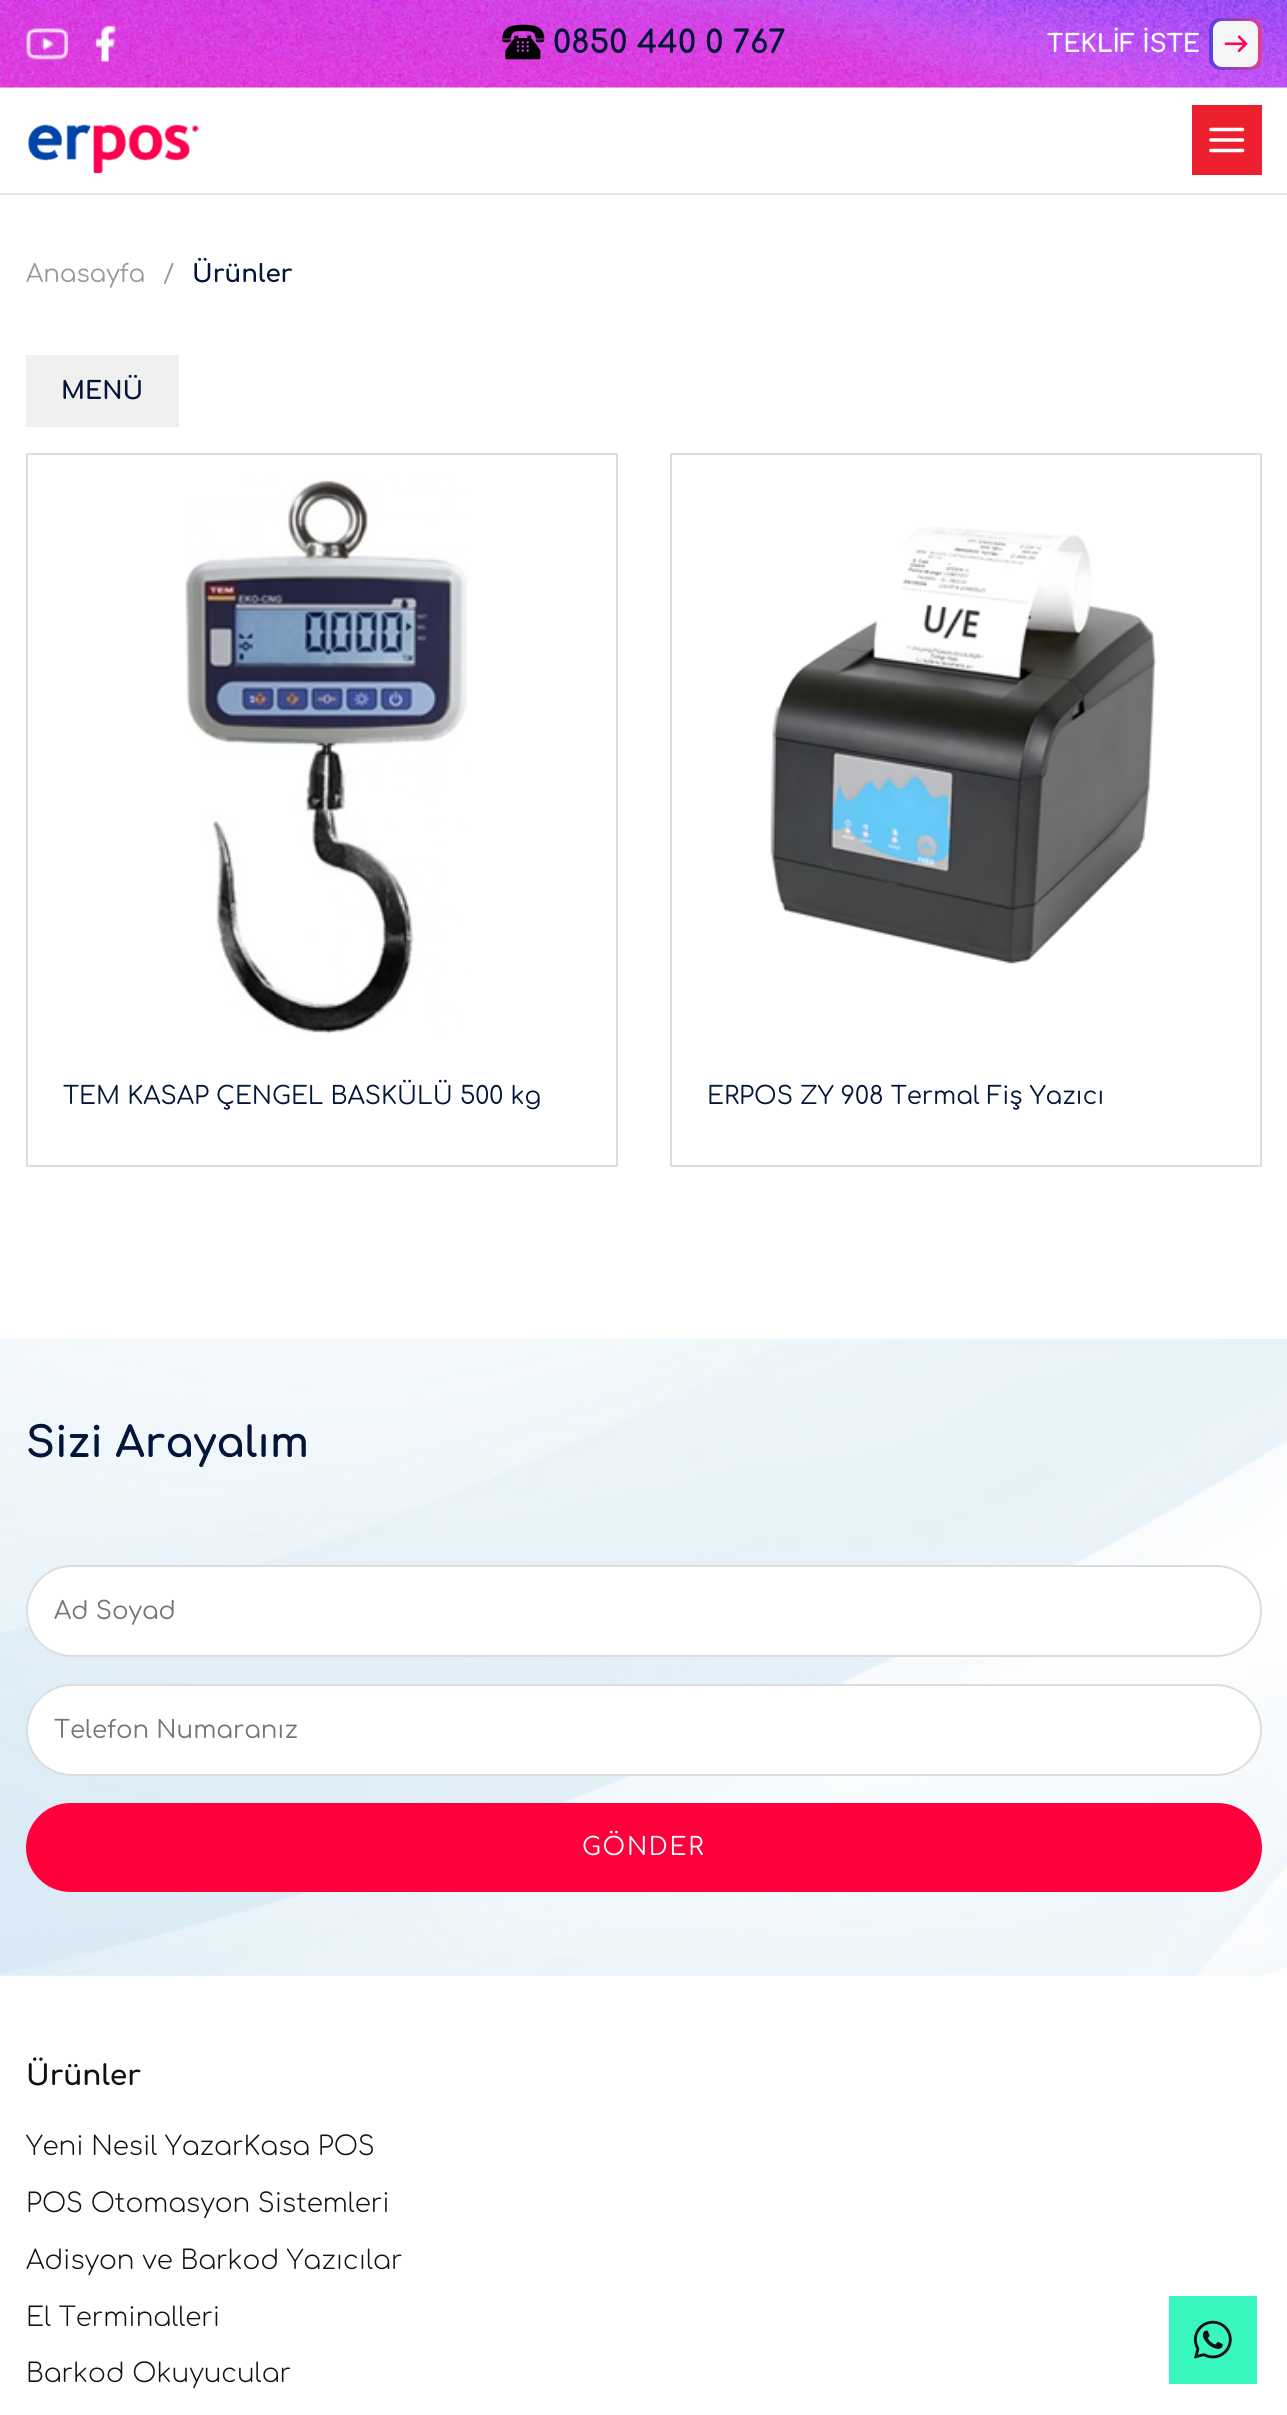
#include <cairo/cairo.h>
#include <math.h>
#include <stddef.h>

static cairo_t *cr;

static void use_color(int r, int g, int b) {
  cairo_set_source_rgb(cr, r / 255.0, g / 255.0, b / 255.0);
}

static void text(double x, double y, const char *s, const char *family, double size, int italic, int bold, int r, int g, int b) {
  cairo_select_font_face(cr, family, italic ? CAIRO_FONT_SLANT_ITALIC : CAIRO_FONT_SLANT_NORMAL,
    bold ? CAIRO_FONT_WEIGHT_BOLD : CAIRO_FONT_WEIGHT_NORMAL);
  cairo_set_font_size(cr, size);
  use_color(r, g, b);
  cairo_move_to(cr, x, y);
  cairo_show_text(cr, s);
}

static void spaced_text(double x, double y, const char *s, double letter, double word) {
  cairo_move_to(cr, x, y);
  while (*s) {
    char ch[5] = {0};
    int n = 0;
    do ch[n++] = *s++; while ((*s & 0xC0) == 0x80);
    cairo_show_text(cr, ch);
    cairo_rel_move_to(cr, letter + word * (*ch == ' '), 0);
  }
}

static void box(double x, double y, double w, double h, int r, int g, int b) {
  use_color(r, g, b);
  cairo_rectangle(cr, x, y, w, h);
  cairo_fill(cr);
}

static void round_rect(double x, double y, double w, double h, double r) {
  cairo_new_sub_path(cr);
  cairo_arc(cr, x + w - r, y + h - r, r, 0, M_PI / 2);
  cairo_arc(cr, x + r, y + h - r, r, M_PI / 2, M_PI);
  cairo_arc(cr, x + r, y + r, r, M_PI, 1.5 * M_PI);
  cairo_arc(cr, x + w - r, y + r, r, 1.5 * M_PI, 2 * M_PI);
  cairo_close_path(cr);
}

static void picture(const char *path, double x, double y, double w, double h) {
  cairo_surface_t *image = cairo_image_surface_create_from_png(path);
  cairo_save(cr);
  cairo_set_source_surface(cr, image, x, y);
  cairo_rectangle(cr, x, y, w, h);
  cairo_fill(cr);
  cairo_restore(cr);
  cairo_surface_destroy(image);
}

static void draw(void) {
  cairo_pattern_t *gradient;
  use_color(255, 255, 255);
  cairo_paint(cr);
  box(0, 87, 1287, 1, 245, 245, 245);
  picture("img_01.png", 0, 0, 1287, 88);
  picture("img_02.png", 26, 28, 43, 32);
  picture("img_03.png", 95, 25, 21, 37);
  picture("img_04.png", 502, 24, 43, 36);
  gradient = cairo_pattern_create_linear(1209, 44, 1262, 44);
  cairo_pattern_add_color_stop_rgba(gradient, 0, 0.318, 0.259, 0.898, 1);
  cairo_pattern_add_color_stop_rgba(gradient, 1, 0.882, 0.255, 0.537, 1);
  cairo_set_source(cr, gradient);
  cairo_pattern_destroy(gradient);
  round_rect(1209, 18, 53, 52, 12);
  cairo_fill(cr);
  use_color(245, 245, 245);
  round_rect(1213, 21, 45, 46, 9);
  cairo_fill(cr);
  picture("img_05.png", 1224, 35, 24, 17);
  box(0, 193, 1287, 2, 230, 230, 230);
  picture("img_06.png", 28, 124, 172, 50);
  box(1192, 105, 70, 70, 237, 32, 47);
  picture("img_07.png", 1209, 127, 36, 26);
  box(26, 355, 153, 72, 240, 240, 240);
  cairo_rectangle(cr, 27, 454, 590, 712);
  use_color(221, 221, 221);
  cairo_stroke(cr);
  picture("img_08.png", 185, 479, 283, 555);
  cairo_rectangle(cr, 671, 454, 590, 712);
  cairo_stroke(cr);
  picture("img_09.png", 770, 527, 387, 438);
  picture("img_10.png", 0, 1338, 1287, 638);
  use_color(255, 255, 255);
  round_rect(27, 1566, 1234, 90, 45);
  cairo_fill_preserve(cr);
  use_color(221, 221, 221);
  cairo_stroke(cr);
  use_color(255, 255, 255);
  round_rect(27, 1685, 1234, 90, 45);
  cairo_fill_preserve(cr);
  use_color(221, 221, 221);
  cairo_stroke(cr);
  use_color(255, 0, 60);
  round_rect(26, 1803, 1236, 89, 44.5);
  cairo_fill(cr);
  box(1169, 2296, 88, 88, 55, 246, 192);
  picture("img_11.png", 1193, 2320, 39, 39);
  text(553, 53, "0850 440 0 767", "Comfortaa", 31.5, 0, 1, 3, 21, 57);
  text(1047, 52, "TEKLİF İSTE", "Comfortaa", 24.5, 0, 1, 255, 255, 255);
  text(26, 282, "Anasayfa", "Comfortaa", 24.5, 0, 0, 153, 153, 153);
  text(163, 282, "/", "Comfortaa", 24.5, 0, 0, 153, 153, 153);
  text(192, 282, "Ürünler", "Comfortaa", 24.5, 0, 1, 3, 21, 57);
  text(61, 399, "MENÜ", "Comfortaa", 24.5, 0, 1, 3, 21, 57);
  text(63, 1104, "TEM KASAP ÇENGEL BASKÜLÜ 500 kg", "Comfortaa", 24.5, 0, 0, 3, 21, 57);
  text(707, 1104, "ERPOS ZY 908 Termal Fiş Yazıcı", "Comfortaa", 24.5, 0, 0, 3, 21, 57);
  text(26, 1457, "Sizi Arayalım", "Comfortaa", 42, 0, 1, 3, 21, 57);
  text(54, 1619, "Ad Soyad", "Comfortaa", 24.5, 0, 0, 117, 117, 117);
  text(54, 1738, "Telefon Numaranız", "Comfortaa", 24.5, 0, 0, 117, 117, 117);
  use_color(255, 255, 255);
  spaced_text(582, 1855, "GÖNDER", 1.75, 0);
  text(26, 2085, "Ürünler", "Comfortaa", 28, 0, 1, 17, 17, 17);
  text(26, 2155, "Yeni Nesil YazarKasa POS", "Comfortaa Light", 26.25, 0, 0, 17, 17, 17);
  text(26, 2212, "POS Otomasyon Sistemleri", "Comfortaa Light", 26.25, 0, 0, 17, 17, 17);
  text(26, 2269, "Adisyon ve Barkod Yazıcılar", "Comfortaa Light", 26.25, 0, 0, 17, 17, 17);
  text(26, 2326, "El Terminalleri", "Comfortaa Light", 26.25, 0, 0, 17, 17, 17);
  text(26, 2382, "Barkod Okuyucular", "Comfortaa Light", 26.25, 0, 0, 17, 17, 17);
}

int main(void) {
  cairo_surface_t *surface = cairo_image_surface_create(CAIRO_FORMAT_RGB24, 1287, 2415);
  cr = cairo_create(surface);
  cairo_font_options_t *options = cairo_font_options_create();
  cairo_font_options_set_hint_metrics(options, CAIRO_HINT_METRICS_OFF);
  cairo_font_options_set_hint_style(options, CAIRO_HINT_STYLE_NONE);
  cairo_set_font_options(cr, options);
  cairo_set_miter_limit(cr, 4);
  draw();
  cairo_surface_write_to_png(surface, "out.png");
  cairo_font_options_destroy(options);
  cairo_destroy(cr);
  cairo_surface_destroy(surface);
  return 0;
}
